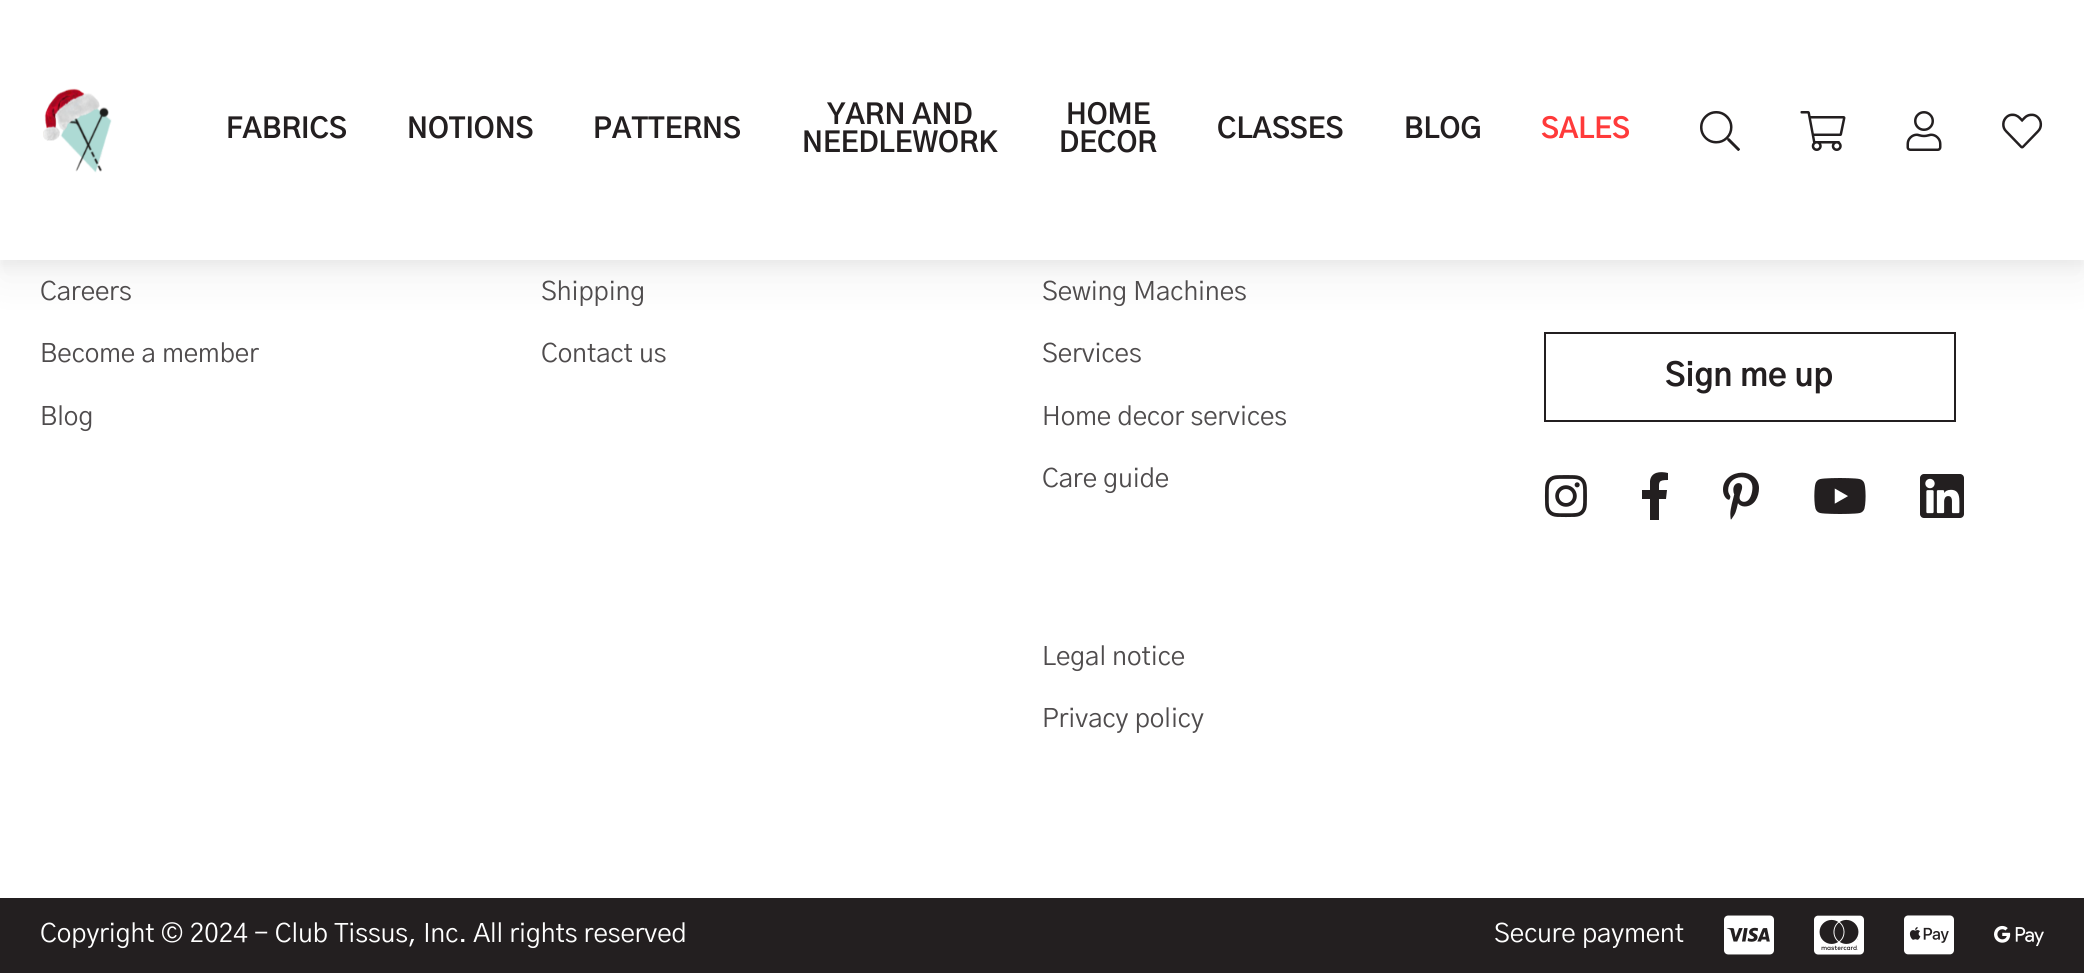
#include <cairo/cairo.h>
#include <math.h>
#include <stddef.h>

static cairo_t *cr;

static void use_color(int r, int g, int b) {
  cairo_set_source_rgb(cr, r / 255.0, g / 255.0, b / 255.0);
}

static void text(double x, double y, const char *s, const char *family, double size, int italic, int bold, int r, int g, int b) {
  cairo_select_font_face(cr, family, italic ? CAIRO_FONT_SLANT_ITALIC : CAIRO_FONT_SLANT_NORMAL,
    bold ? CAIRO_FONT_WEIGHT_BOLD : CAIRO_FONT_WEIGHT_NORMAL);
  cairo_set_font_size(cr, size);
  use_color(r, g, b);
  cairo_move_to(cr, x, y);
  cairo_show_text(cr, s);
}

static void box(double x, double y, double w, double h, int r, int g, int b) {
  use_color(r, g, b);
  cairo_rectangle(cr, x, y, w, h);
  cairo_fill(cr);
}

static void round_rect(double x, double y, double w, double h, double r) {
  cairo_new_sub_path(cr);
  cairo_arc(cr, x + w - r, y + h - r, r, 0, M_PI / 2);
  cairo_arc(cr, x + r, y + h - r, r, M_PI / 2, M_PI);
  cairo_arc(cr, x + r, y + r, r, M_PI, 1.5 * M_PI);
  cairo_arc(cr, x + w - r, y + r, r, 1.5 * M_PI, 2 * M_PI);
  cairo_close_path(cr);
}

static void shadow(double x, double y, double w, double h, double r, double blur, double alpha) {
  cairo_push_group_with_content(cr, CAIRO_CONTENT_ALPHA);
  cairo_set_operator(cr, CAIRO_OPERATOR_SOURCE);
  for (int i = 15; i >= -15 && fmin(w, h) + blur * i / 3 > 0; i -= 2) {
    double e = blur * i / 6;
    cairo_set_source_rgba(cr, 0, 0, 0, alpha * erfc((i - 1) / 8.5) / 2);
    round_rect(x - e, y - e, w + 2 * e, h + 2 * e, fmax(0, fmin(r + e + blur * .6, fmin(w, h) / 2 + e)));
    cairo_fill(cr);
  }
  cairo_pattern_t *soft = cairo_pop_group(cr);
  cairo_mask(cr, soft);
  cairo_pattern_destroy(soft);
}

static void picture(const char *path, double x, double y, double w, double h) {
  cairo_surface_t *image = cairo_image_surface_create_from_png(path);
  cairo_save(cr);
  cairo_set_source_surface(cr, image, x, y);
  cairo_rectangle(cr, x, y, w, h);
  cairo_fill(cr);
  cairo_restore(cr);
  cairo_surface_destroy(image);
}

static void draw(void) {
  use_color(255, 255, 255);
  cairo_paint(cr);
  cairo_rectangle(cr, 1545, 333, 410, 88);
  use_color(35, 31, 32);
  cairo_stroke(cr);
  use_color(0, 0, 0);
  shadow(0, 20, 2084, 260, 0, 20, 0.05);
  shadow(0, 6, 2084, 260, 0, 6, 0.05);
  box(0, 0, 2084, 260, 255, 255, 255);
  picture("img_01.png", 43, 88, 69, 85);
  picture("img_02.png", 1700, 111, 40, 40);
  picture("img_03.png", 1800, 111, 46, 40);
  picture("img_04.png", 1906, 111, 36, 40);
  picture("img_05.png", 2002, 113, 41, 36);
  picture("img_06.png", 1544, 475, 43, 43);
  use_color(35, 31, 32);
  cairo_new_path(cr);
  cairo_move_to(cr, 1666, 499);
  cairo_line_to(cr, 1667, 490);
  cairo_line_to(cr, 1659, 490);
  cairo_curve_to(cr, 1659, 482, 1658, 480, 1668, 480);
  cairo_line_to(cr, 1668, 473);
  cairo_curve_to(cr, 1660, 471, 1651, 472, 1650, 481);
  cairo_line_to(cr, 1650, 490);
  cairo_line_to(cr, 1642, 490);
  cairo_line_to(cr, 1642, 499);
  cairo_line_to(cr, 1650, 499);
  cairo_line_to(cr, 1650, 520);
  cairo_line_to(cr, 1659, 520);
  cairo_line_to(cr, 1659, 499);
  cairo_close_path(cr);
  cairo_fill(cr);
  picture("img_07.png", 1723, 472, 36, 48);
  picture("img_08.png", 1814, 478, 52, 36);
  picture("img_09.png", 1920, 474, 44, 44);
  box(0, 898, 2084, 75, 35, 31, 32);
  picture("img_10.png", 1724, 915, 50, 40);
  picture("img_11.png", 1814, 915, 50, 40);
  picture("img_12.png", 1904, 915, 50, 40);
  picture("img_13.png", 1994, 925, 50, 22);
  text(226, 138, "FABRICS", "Gothic A1", 28, 0, 1, 35, 31, 32);
  text(407, 138, "NOTIONS", "Gothic A1", 28, 0, 1, 35, 31, 32);
  text(593, 138, "PATTERNS", "Gothic A1", 28, 0, 1, 35, 31, 32);
  text(827, 124, "YARN AND", "Gothic A1", 28, 0, 1, 35, 31, 32);
  text(802, 152, "NEEDLEWORK", "Gothic A1", 28, 0, 1, 35, 31, 32);
  text(1066, 124, "HOME", "Gothic A1", 28, 0, 1, 35, 31, 32);
  text(1059, 152, "DECOR", "Gothic A1", 28, 0, 1, 35, 31, 32);
  text(1217, 138, "CLASSES", "Gothic A1", 28, 0, 1, 35, 31, 32);
  text(1404, 138, "BLOG", "Gothic A1", 28, 0, 1, 35, 31, 32);
  text(1541, 138, "SALES", "Gothic A1", 28, 0, 1, 255, 58, 58);
  text(40, 300, "Careers", "Gothic A1", 26, 0, 0, 79, 76, 77);
  text(40, 362, "Become a member", "Gothic A1", 26, 0, 0, 79, 76, 77);
  text(40, 425, "Blog", "Gothic A1", 26, 0, 0, 79, 76, 77);
  text(541, 300, "Shipping", "Gothic A1", 26, 0, 0, 79, 76, 77);
  text(541, 362, "Contact us", "Gothic A1", 26, 0, 0, 79, 76, 77);
  text(1042, 300, "Sewing Machines", "Gothic A1", 26, 0, 0, 79, 76, 77);
  text(1042, 362, "Services", "Gothic A1", 26, 0, 0, 79, 76, 77);
  text(1042, 425, "Home decor services", "Gothic A1", 26, 0, 0, 79, 76, 77);
  text(1042, 487, "Care guide", "Gothic A1", 26, 0, 0, 79, 76, 77);
  text(1042, 665, "Legal notice", "Gothic A1", 26, 0, 0, 79, 76, 77);
  text(1042, 727, "Privacy policy", "Gothic A1", 26, 0, 0, 79, 76, 77);
  text(1665, 386, "Sign me up", "Gothic A1", 32, 0, 1, 35, 31, 32);
  text(40, 942, "Copyright © 2024 - Club Tissus, Inc. All rights reserved", "Gothic A1", 26, 0, 0, 255, 255, 255);
  text(1494, 942, "Secure payment", "Gothic A1", 26, 0, 0, 255, 255, 255);
}

int main(void) {
  cairo_surface_t *surface = cairo_image_surface_create(CAIRO_FORMAT_RGB24, 2084, 973);
  cr = cairo_create(surface);
  cairo_font_options_t *options = cairo_font_options_create();
  cairo_font_options_set_hint_metrics(options, CAIRO_HINT_METRICS_OFF);
  cairo_font_options_set_hint_style(options, CAIRO_HINT_STYLE_NONE);
  cairo_set_font_options(cr, options);
  cairo_set_miter_limit(cr, 4);
  draw();
  cairo_surface_write_to_png(surface, "out.png");
  cairo_font_options_destroy(options);
  cairo_destroy(cr);
  cairo_surface_destroy(surface);
  return 0;
}
